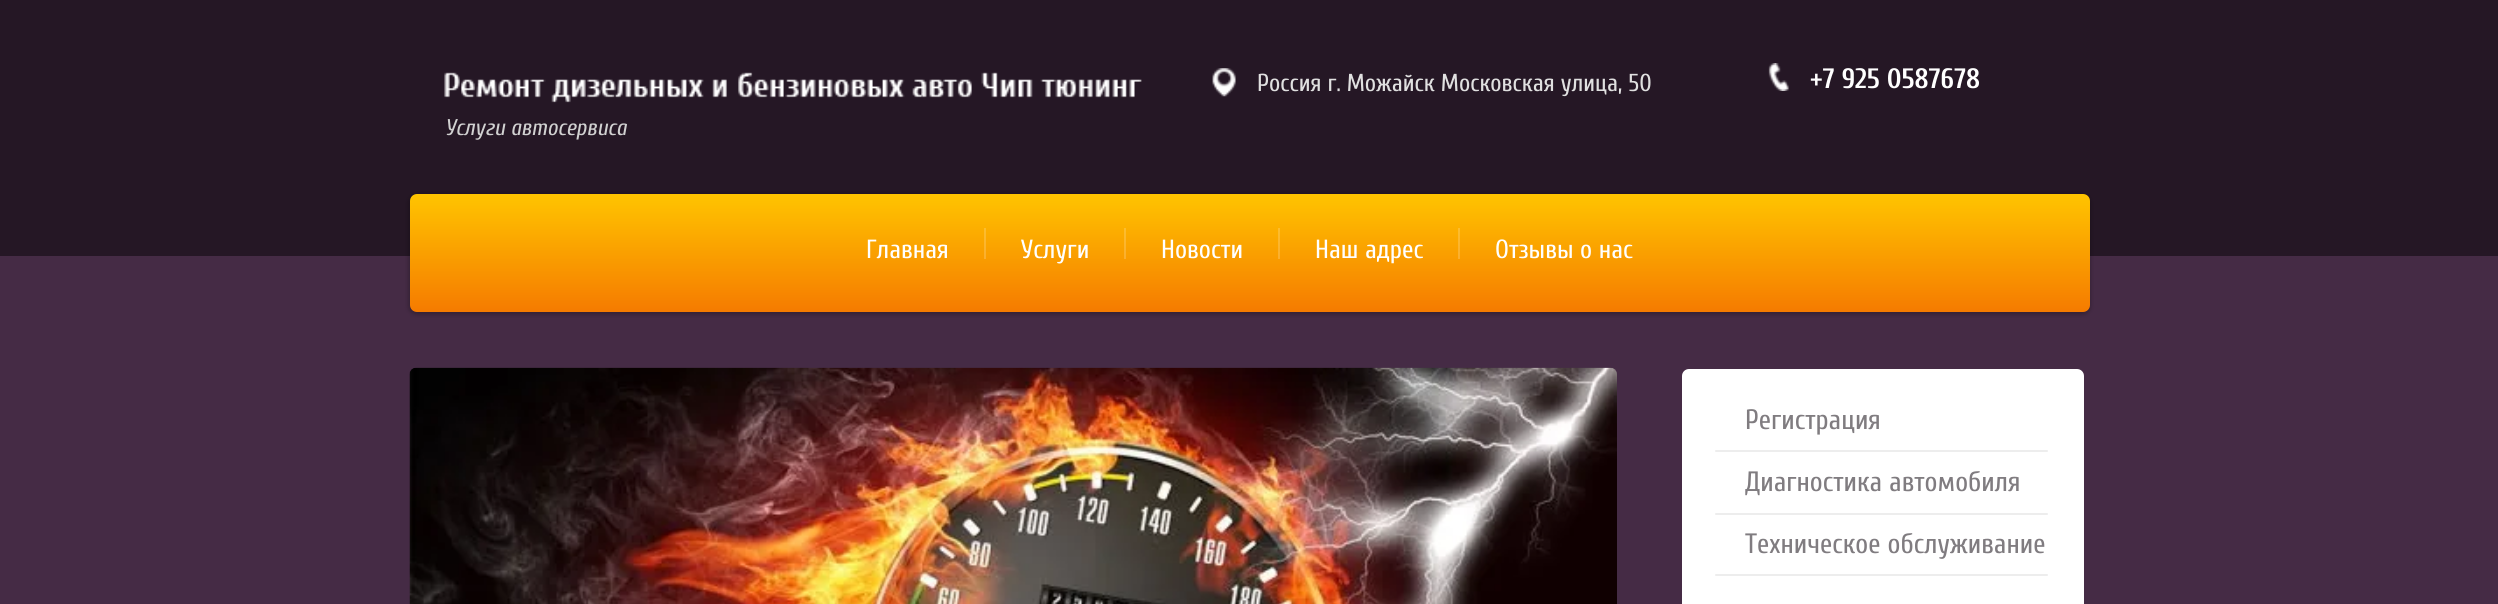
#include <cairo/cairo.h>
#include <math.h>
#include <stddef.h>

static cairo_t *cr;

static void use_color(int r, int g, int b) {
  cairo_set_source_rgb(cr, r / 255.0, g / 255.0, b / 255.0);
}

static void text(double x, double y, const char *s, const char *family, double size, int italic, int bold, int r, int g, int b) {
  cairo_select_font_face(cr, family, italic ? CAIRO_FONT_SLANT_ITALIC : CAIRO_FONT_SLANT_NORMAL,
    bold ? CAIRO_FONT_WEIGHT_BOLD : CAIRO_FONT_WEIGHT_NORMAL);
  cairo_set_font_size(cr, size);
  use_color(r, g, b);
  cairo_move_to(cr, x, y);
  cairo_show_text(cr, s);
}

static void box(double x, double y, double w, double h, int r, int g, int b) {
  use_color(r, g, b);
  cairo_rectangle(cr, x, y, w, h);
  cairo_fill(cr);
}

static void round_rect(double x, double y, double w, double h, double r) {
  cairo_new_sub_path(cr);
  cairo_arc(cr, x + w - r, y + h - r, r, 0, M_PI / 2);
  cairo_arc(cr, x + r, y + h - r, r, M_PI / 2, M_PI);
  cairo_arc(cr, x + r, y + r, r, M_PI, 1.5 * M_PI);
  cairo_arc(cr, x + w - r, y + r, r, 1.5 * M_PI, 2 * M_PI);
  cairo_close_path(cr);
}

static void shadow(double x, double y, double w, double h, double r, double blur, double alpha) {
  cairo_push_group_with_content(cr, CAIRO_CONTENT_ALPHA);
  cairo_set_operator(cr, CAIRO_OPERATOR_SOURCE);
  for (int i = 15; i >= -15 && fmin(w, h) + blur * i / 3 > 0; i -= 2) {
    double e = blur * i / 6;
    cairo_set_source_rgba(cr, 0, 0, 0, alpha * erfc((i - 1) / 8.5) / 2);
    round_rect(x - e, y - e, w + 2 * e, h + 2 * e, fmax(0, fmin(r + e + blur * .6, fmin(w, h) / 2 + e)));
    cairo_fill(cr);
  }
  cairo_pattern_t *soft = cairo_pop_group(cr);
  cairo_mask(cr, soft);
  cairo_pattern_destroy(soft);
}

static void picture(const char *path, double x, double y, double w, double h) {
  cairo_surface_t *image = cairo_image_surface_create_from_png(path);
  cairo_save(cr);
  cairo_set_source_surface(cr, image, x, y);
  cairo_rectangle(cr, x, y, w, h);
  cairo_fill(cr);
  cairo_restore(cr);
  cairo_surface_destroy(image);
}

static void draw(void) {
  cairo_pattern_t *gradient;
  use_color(69, 43, 69);
  cairo_paint(cr);
  box(0, 0, 2498, 256, 37, 23, 37);
  picture("img_01.png", 1212, 68, 24, 29);
  picture("img_02.png", 1768, 63, 21, 28);
  picture("img_03.png", 444, 72, 698, 31);
  use_color(0, 0, 0);
  shadow(408, 194, 1683, 121, 9, 2, 0.22);
  gradient = cairo_pattern_create_linear(1250, 194, 1250, 312);
  cairo_pattern_add_color_stop_rgba(gradient, 0, 1, 0.769, 0, 1);
  cairo_pattern_add_color_stop_rgba(gradient, 1, 0.961, 0.482, 0, 1);
  cairo_set_source(cr, gradient);
  cairo_pattern_destroy(gradient);
  round_rect(410, 194, 1680, 118, 7);
  cairo_fill(cr);
  gradient = cairo_pattern_create_linear(1250, 194, 1250, 312);
  cairo_pattern_add_color_stop_rgba(gradient, 0, 1, 0.812, 0.18, 1);
  cairo_pattern_add_color_stop_rgba(gradient, 1, 0.969, 0.576, 0.18, 1);
  cairo_set_source(cr, gradient);
  cairo_pattern_destroy(gradient);
  cairo_rectangle(cr, 1458, 228, 2, 31);
  cairo_fill(cr);
  cairo_rectangle(cr, 1278, 228, 2, 31);
  cairo_fill(cr);
  cairo_rectangle(cr, 1124, 228, 2, 31);
  cairo_fill(cr);
  cairo_rectangle(cr, 984, 228, 2, 31);
  cairo_fill(cr);
  picture("img_04.png", 409, 367, 1208, 237);
  use_color(255, 255, 255);
  round_rect(1682, 369, 402, 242, 7);
  cairo_fill(cr);
  use_color(237, 237, 237);
  round_rect(1715, 450, 333, 2, 1);
  cairo_fill(cr);
  round_rect(1715, 513, 333, 2, 1);
  cairo_fill(cr);
  round_rect(1715, 574, 333, 2, 1);
  cairo_fill(cr);
  text(1257, 91, "Россия г. Можайск Московская улица, 50", "Cuprum", 24.5, 0, 0, 224, 224, 224);
  text(1810, 88, "+7 925 0587678", "Cuprum", 28, 0, 1, 255, 255, 255);
  text(445, 135, "Услуги автосервиса", "Cuprum", 22.75, 1, 0, 209, 209, 209);
  text(866, 258, "Главная", "Cuprum", 26.25, 0, 0, 255, 255, 255);
  text(1021, 258, "Услуги", "Cuprum", 26.25, 0, 0, 255, 255, 255);
  text(1161, 258, "Новости", "Cuprum", 26.25, 0, 0, 255, 255, 255);
  text(1315, 258, "Наш адрес", "Cuprum", 26.25, 0, 0, 255, 255, 255);
  text(1495, 258, "Отзывы о нас", "Cuprum", 26.25, 0, 0, 255, 255, 255);
  text(1745, 429, "Регистрация", "Cuprum", 28, 0, 0, 128, 124, 128);
  text(1745, 491, "Диагностика автомобиля", "Cuprum", 28, 0, 0, 128, 124, 128);
  text(1745, 553, "Техническое обслуживание", "Cuprum", 28, 0, 0, 128, 124, 128);
}

int main(void) {
  cairo_surface_t *surface = cairo_image_surface_create(CAIRO_FORMAT_RGB24, 2498, 604);
  cr = cairo_create(surface);
  cairo_font_options_t *options = cairo_font_options_create();
  cairo_font_options_set_hint_metrics(options, CAIRO_HINT_METRICS_OFF);
  cairo_font_options_set_hint_style(options, CAIRO_HINT_STYLE_NONE);
  cairo_set_font_options(cr, options);
  cairo_set_miter_limit(cr, 4);
  draw();
  cairo_surface_write_to_png(surface, "out.png");
  cairo_font_options_destroy(options);
  cairo_destroy(cr);
  cairo_surface_destroy(surface);
  return 0;
}
